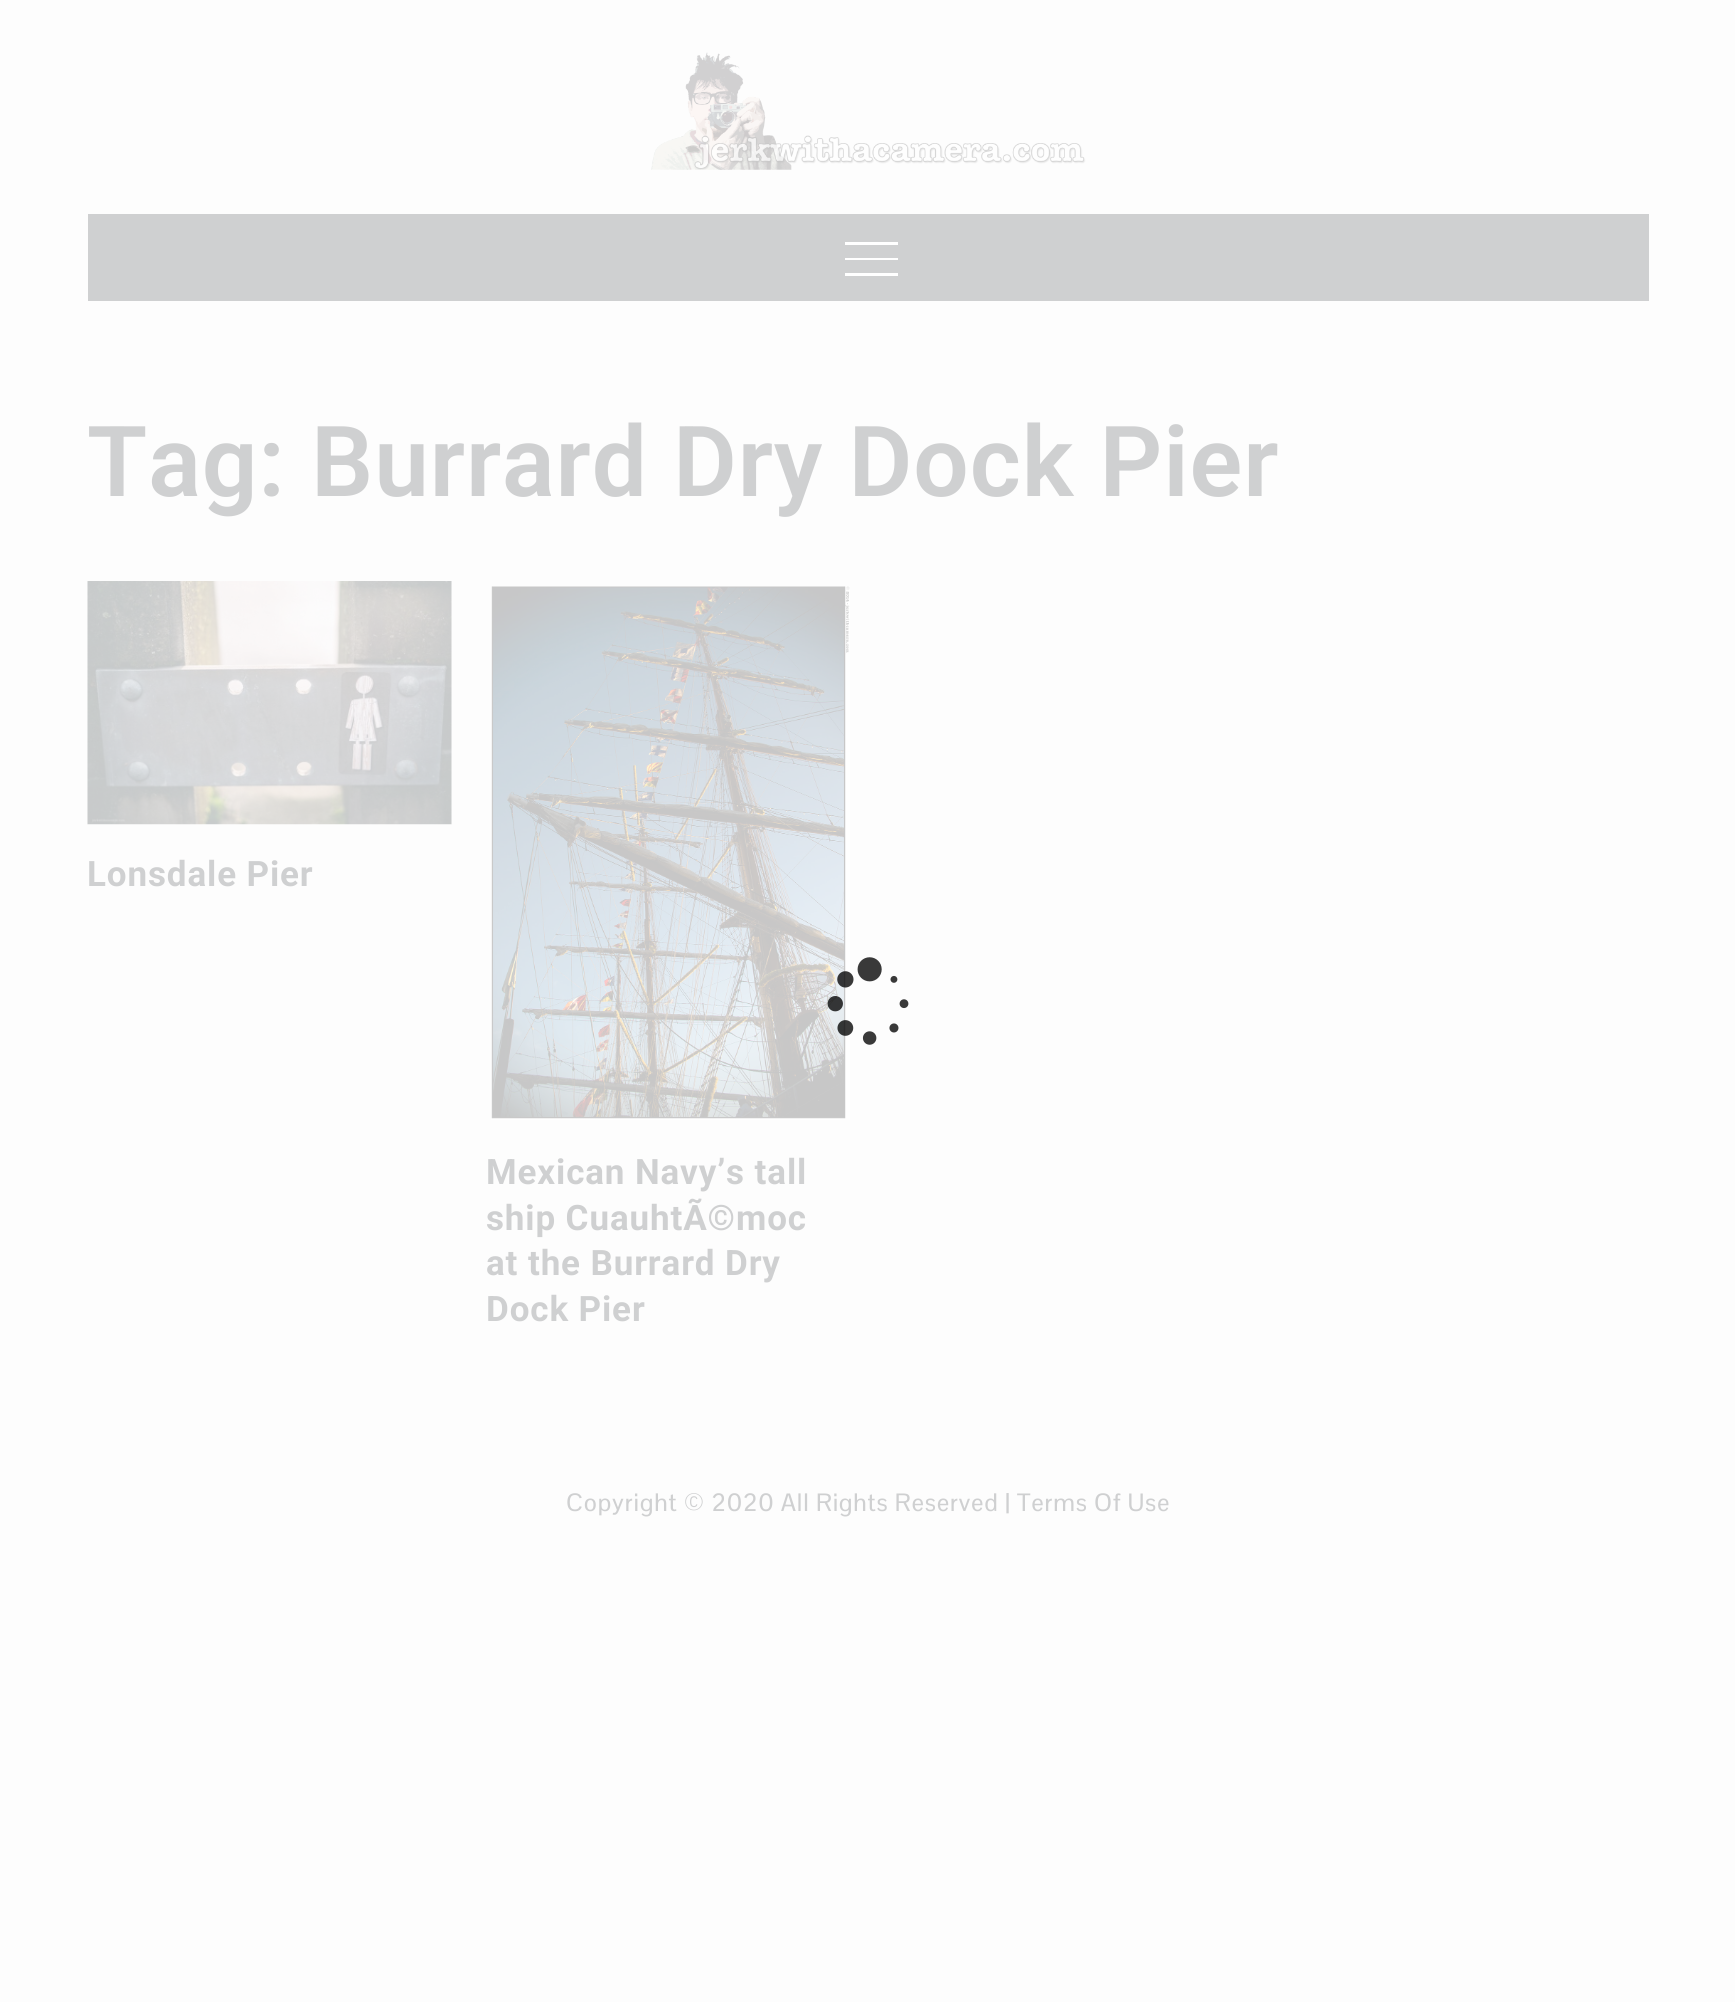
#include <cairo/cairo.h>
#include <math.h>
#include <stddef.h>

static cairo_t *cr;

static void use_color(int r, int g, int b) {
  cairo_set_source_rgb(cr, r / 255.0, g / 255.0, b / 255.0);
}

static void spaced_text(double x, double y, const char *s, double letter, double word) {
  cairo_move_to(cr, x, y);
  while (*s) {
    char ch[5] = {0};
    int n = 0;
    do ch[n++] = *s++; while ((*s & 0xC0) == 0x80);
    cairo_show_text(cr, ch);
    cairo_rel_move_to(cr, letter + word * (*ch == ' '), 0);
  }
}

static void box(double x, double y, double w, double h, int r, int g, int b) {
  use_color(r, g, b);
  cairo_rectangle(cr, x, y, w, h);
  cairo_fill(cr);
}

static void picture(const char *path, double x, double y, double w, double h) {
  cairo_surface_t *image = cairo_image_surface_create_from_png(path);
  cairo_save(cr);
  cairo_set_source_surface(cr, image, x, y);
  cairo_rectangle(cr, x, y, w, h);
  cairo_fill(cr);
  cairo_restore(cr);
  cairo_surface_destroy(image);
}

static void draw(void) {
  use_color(253, 253, 253);
  cairo_paint(cr);
  picture("img_01.png", 651, 52, 435, 118);
  box(88, 214, 1561, 87, 207, 208, 209);
  box(845, 242, 53, 3, 255, 255, 255);
  box(845, 258, 53, 2, 255, 255, 255);
  box(845, 273, 53, 3, 255, 255, 255);
  picture("img_02.png", 87, 581, 365, 244);
  picture("img_03.png", 491, 586, 359, 534);
  picture("img_04.png", 827, 957, 82, 88);
  cairo_select_font_face(cr, "Roboto SemiBold", CAIRO_FONT_SLANT_NORMAL, CAIRO_FONT_WEIGHT_NORMAL);
  cairo_set_font_size(cr, 98);
  use_color(207, 208, 209);
  spaced_text(87, 496, "Tag: Burrard Dry Dock Pier", 0.88, 0);
  cairo_select_font_face(cr, "Roboto", CAIRO_FONT_SLANT_NORMAL, CAIRO_FONT_WEIGHT_BOLD);
  cairo_set_font_size(cr, 35);
  spaced_text(87, 886, "Lonsdale Pier", 0.88, 0);
  spaced_text(486, 1184, "Mexican Navy’s tall", 0.88, 0);
  spaced_text(486, 1230, "ship CuauhtÃ©moc", 0.88, 0);
  spaced_text(486, 1275, "at the Burrard Dry", 0.88, 0);
  spaced_text(486, 1321, "Dock Pier", 0.88, 0);
  cairo_select_font_face(cr, "Pontano Sans Medium", CAIRO_FONT_SLANT_NORMAL, CAIRO_FONT_WEIGHT_NORMAL);
  cairo_set_font_size(cr, 24.5);
  spaced_text(566, 1511, "Copyright © 2020 All Rights Reserved | Terms Of Use", 0.88, 0);
}

int main(void) {
  cairo_surface_t *surface = cairo_image_surface_create(CAIRO_FORMAT_RGB24, 1735, 2002);
  cr = cairo_create(surface);
  cairo_font_options_t *options = cairo_font_options_create();
  cairo_font_options_set_hint_metrics(options, CAIRO_HINT_METRICS_OFF);
  cairo_font_options_set_hint_style(options, CAIRO_HINT_STYLE_NONE);
  cairo_set_font_options(cr, options);
  cairo_set_miter_limit(cr, 4);
  draw();
  cairo_surface_write_to_png(surface, "out.png");
  cairo_font_options_destroy(options);
  cairo_destroy(cr);
  cairo_surface_destroy(surface);
  return 0;
}
